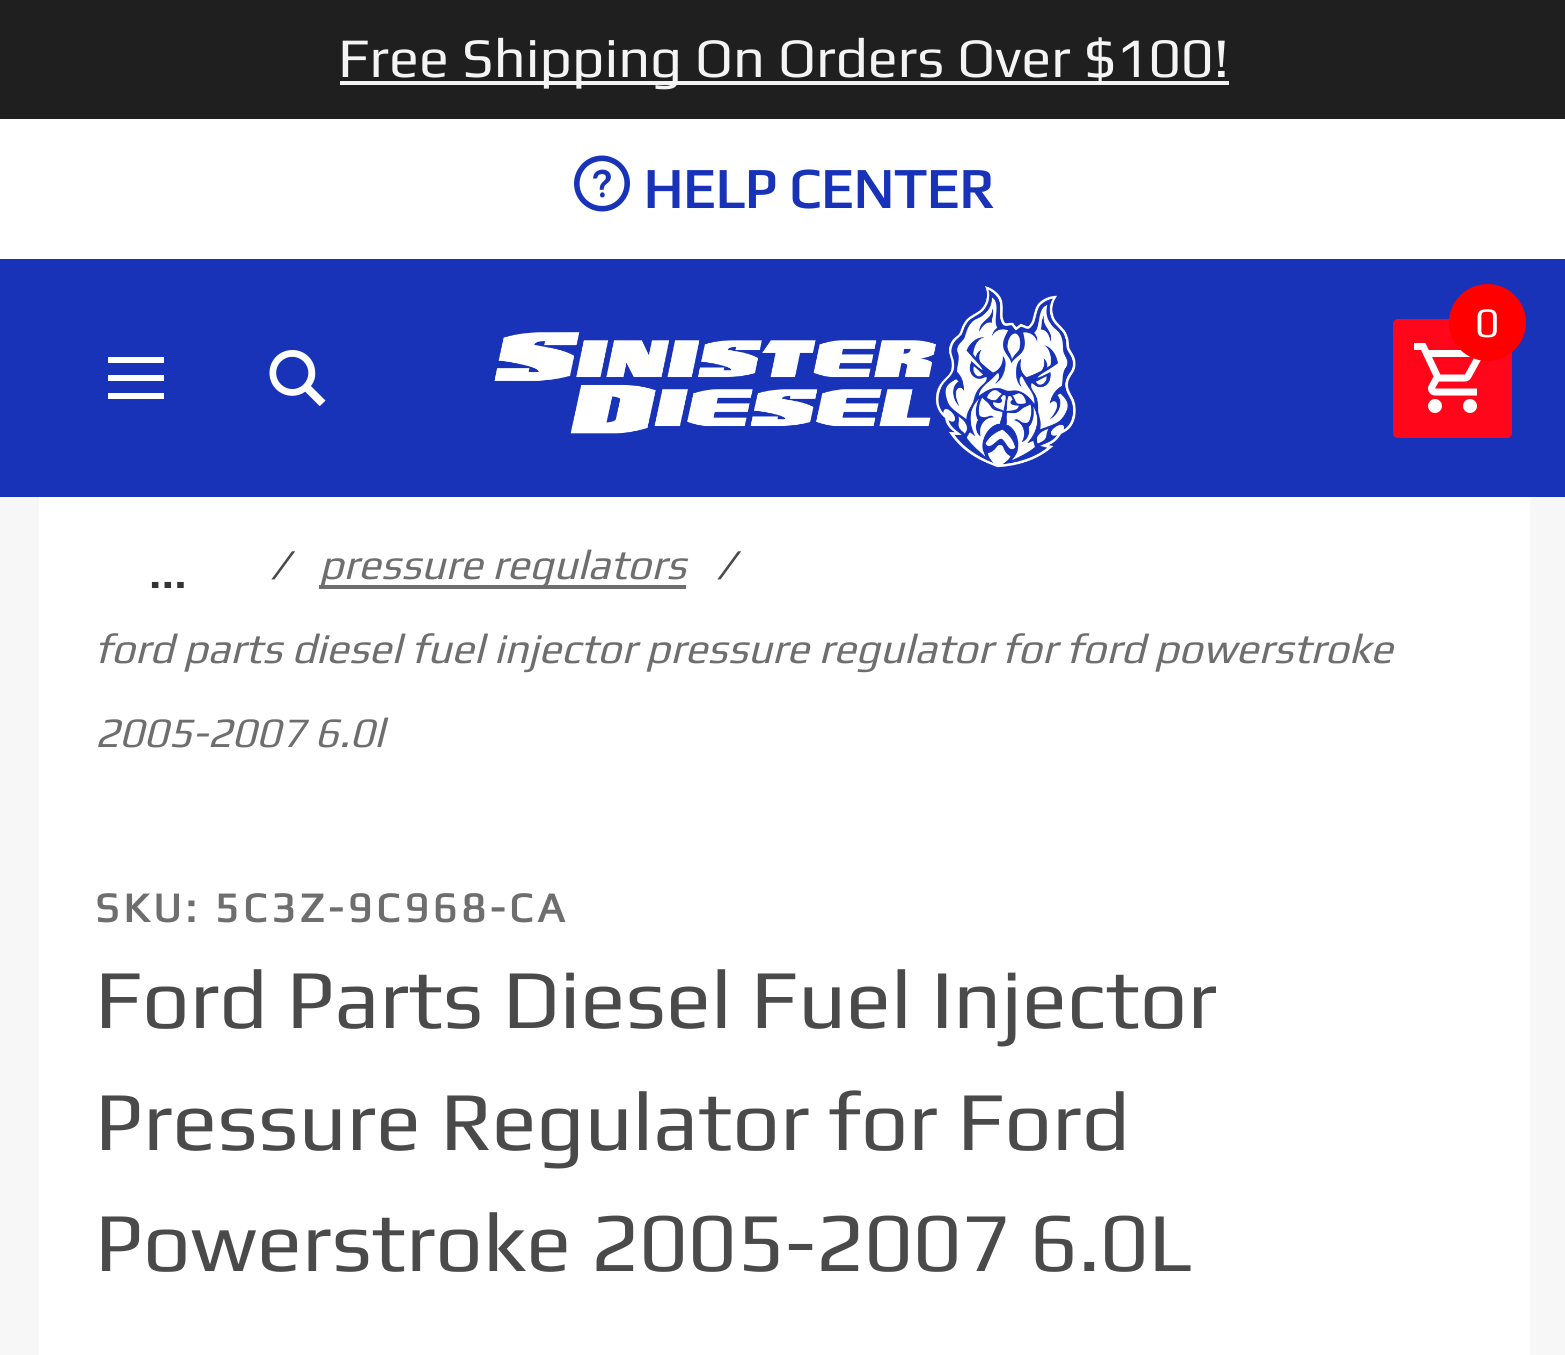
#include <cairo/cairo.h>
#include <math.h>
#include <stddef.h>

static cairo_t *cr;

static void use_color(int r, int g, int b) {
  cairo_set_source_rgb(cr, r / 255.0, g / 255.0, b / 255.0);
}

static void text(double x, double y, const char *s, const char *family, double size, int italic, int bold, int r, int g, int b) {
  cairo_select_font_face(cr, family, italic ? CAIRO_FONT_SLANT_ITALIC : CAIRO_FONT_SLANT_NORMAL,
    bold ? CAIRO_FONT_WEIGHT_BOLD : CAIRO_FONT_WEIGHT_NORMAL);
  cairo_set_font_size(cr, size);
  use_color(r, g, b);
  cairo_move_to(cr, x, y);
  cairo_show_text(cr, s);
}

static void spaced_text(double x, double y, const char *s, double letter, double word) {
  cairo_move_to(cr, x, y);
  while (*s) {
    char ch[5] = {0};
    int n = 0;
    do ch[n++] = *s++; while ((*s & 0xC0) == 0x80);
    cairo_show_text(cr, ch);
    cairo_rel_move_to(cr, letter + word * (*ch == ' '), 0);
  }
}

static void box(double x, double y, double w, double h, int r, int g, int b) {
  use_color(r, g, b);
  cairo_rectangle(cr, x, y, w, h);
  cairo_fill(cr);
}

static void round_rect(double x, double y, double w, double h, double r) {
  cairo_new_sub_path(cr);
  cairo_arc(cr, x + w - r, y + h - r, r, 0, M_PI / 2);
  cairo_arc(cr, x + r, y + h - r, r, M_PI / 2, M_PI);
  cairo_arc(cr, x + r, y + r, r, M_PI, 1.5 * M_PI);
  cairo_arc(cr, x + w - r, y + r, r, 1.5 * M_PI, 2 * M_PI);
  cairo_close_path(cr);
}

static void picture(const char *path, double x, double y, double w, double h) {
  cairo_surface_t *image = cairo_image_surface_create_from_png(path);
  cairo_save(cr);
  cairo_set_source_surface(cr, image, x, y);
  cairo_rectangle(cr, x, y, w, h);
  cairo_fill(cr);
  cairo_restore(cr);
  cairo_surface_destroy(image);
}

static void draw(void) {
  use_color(247, 247, 247);
  cairo_paint(cr);
  box(0, 0, 1565, 119, 31, 31, 31);
  box(340, 81, 889, 4, 244, 244, 244);
  box(0, 119, 1565, 140, 255, 255, 255);
  box(0, 259, 1565, 238, 24, 51, 184);
  picture("img_01.png", 494, 286, 582, 182);
  use_color(255, 6, 27);
  round_rect(1393, 319, 119, 119, 5);
  cairo_fill(cr);
  picture("img_02.png", 1414, 343, 67, 70);
  use_color(255, 0, 0);
  cairo_arc(cr, 1487.5, 322.5, 38.5, 0, 2 * M_PI);
  cairo_fill(cr);
  use_color(255, 255, 255);
  cairo_new_path(cr);
  cairo_move_to(cr, 108, 393);
  cairo_line_to(cr, 108, 399);
  cairo_line_to(cr, 164, 399);
  cairo_line_to(cr, 164, 393);
  cairo_close_path(cr);
  cairo_move_to(cr, 108, 375);
  cairo_line_to(cr, 108, 381);
  cairo_line_to(cr, 164, 381);
  cairo_line_to(cr, 164, 375);
  cairo_close_path(cr);
  cairo_move_to(cr, 108, 357);
  cairo_line_to(cr, 108, 363);
  cairo_line_to(cr, 164, 363);
  cairo_line_to(cr, 164, 357);
  cairo_close_path(cr);
  cairo_fill(cr);
  picture("img_03.png", 269, 350, 57, 57);
  box(39, 497, 1491, 858, 255, 255, 255);
  box(319, 585, 367, 4, 110, 110, 110);
  text(338, 77, "Free Shipping On Orders Over $100!", "Play", 56, 0, 0, 244, 244, 244);
  text(574, 208, "#", "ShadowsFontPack", 56, 0, 0, 24, 51, 184);
  text(643, 208, "HELP CENTER", "Play", 56, 0, 1, 24, 51, 184);
  text(1475, 337, "0", "Play", 42, 0, 0, 255, 255, 255);
  text(271, 579, "/", "Play", 42, 1, 0, 74, 74, 74);
  text(148, 588, "…", "Play", 56, 0, 0, 51, 51, 51);
  text(319, 579, "pressure regulators", "Play", 42, 1, 0, 110, 110, 110);
  text(717, 579, "/", "Play", 42, 1, 0, 74, 74, 74);
  text(95, 663, "ford parts diesel fuel injector pressure regulator for ford powerstroke", "Play", 42, 1, 0, 110, 110, 110);
  text(95, 747, "2005-2007 6.0l", "Play", 42, 1, 0, 110, 110, 110);
  cairo_select_font_face(cr, "Play", CAIRO_FONT_SLANT_NORMAL, CAIRO_FONT_WEIGHT_BOLD);
  spaced_text(95, 922, "SKU: 5C3Z-9C968-CA", 4.25, 0);
  text(95, 1028, "Ford Parts Diesel Fuel Injector", "Play", 84, 0, 0, 74, 74, 74);
  text(95, 1150, "Pressure Regulator for Ford", "Play", 84, 0, 0, 74, 74, 74);
  text(95, 1271, "Powerstroke 2005-2007 6.0L", "Play", 84, 0, 0, 74, 74, 74);
}

int main(void) {
  cairo_surface_t *surface = cairo_image_surface_create(CAIRO_FORMAT_RGB24, 1565, 1355);
  cr = cairo_create(surface);
  cairo_font_options_t *options = cairo_font_options_create();
  cairo_font_options_set_hint_metrics(options, CAIRO_HINT_METRICS_OFF);
  cairo_font_options_set_hint_style(options, CAIRO_HINT_STYLE_NONE);
  cairo_set_font_options(cr, options);
  cairo_set_miter_limit(cr, 4);
  draw();
  cairo_surface_write_to_png(surface, "out.png");
  cairo_font_options_destroy(options);
  cairo_destroy(cr);
  cairo_surface_destroy(surface);
  return 0;
}
